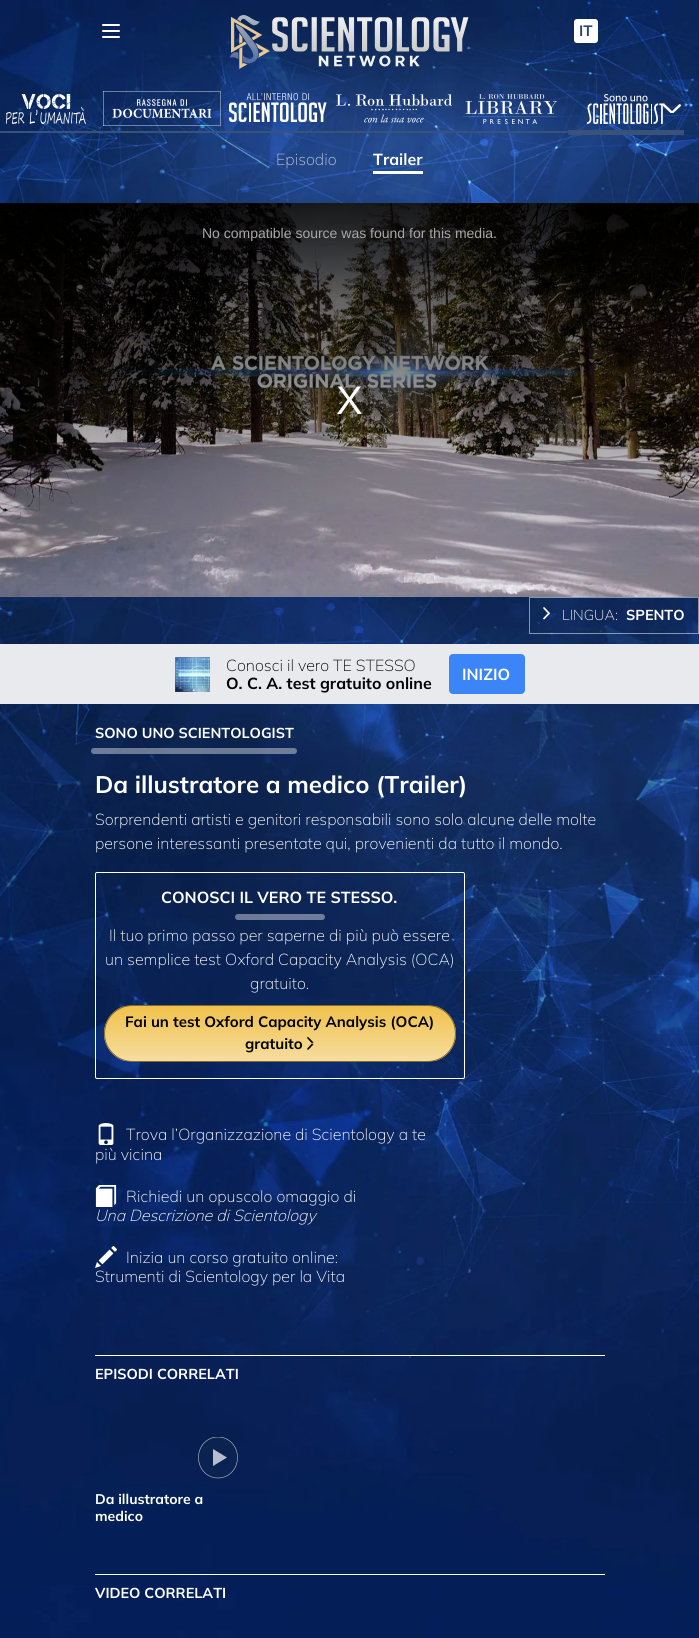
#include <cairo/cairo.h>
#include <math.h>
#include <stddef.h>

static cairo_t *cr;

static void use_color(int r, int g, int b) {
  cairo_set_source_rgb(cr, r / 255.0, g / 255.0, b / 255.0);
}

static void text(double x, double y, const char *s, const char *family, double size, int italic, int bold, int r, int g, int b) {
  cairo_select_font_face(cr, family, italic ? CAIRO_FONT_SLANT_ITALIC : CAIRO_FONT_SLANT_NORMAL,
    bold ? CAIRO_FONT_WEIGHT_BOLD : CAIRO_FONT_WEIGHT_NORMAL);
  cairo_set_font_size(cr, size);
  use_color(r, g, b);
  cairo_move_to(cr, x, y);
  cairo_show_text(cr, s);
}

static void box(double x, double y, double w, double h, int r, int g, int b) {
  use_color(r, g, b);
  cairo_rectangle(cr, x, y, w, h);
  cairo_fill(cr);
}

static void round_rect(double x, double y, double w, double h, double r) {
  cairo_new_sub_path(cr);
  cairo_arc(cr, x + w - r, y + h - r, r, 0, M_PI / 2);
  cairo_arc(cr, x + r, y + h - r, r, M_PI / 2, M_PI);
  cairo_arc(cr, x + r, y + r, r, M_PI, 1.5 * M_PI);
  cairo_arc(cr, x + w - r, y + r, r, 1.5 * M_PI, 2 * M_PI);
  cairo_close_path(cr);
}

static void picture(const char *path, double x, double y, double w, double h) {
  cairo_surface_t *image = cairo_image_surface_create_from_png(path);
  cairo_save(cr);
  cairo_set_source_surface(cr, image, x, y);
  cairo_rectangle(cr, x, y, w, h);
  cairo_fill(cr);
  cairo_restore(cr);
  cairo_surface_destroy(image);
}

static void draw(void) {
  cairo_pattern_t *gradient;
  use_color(255, 255, 255);
  cairo_paint(cr);
  picture("img_01.png", 0, 0, 699, 1638);
  picture("img_02.png", 0, 0, 699, 1586);
  use_color(255, 255, 255);
  round_rect(102, 30, 18, 2, 1);
  cairo_fill(cr);
  round_rect(102, 24, 18, 2, 1);
  cairo_fill(cr);
  round_rect(102, 36, 18, 2, 1);
  cairo_fill(cr);
  picture("img_03.png", 230, 15, 40, 54);
  picture("img_04.png", 272, 17, 197, 50);
  round_rect(574, 19, 24, 24, 3);
  cairo_fill(cr);
  picture("img_05.png", 6, 94, 80, 30);
  use_color(58, 81, 121);
  cairo_new_path(cr);
  cairo_move_to(cr, 0, 131);
  cairo_line_to(cr, 103, 131);
  cairo_curve_to(cr, 103.5, 131, 104, 131.5, 104, 132);
  cairo_curve_to(cr, 104, 132.5, 103.5, 133, 103, 133);
  cairo_line_to(cr, 0, 133);
  cairo_close_path(cr);
  cairo_fill(cr);
  picture("img_06.png", 103, 91, 118, 35);
  round_rect(104, 131, 116, 2, 1);
  cairo_fill(cr);
  picture("img_07.png", 229, 93, 98, 29);
  round_rect(220, 131, 116, 2, 1);
  cairo_fill(cr);
  picture("img_08.png", 336, 94, 116, 29);
  round_rect(336, 131, 116, 2, 1);
  cairo_fill(cr);
  picture("img_09.png", 463, 94, 94, 30);
  round_rect(452, 131, 116, 2, 1);
  cairo_fill(cr);
  picture("img_10.png", 587, 94, 78, 30);
  round_rect(568, 130, 116, 5, 1);
  cairo_fill(cr);
  picture("img_11.png", 663, 104, 18, 9);
  box(373, 171, 50, 3, 255, 255, 255);
  picture("img_12.png", 0, 203, 699, 394);
  cairo_rectangle(cr, 529.5, 597.5, 169, 36);
  cairo_set_source_rgba(cr, 1, 1, 1, 0.5);
  cairo_set_line_width(cr, 1);
  cairo_stroke(cr);
  picture("img_13.png", 543, 607, 7, 13);
  box(0, 644, 699, 60, 232, 234, 238);
  picture("img_14.png", 175, 657, 35, 35);
  use_color(60, 133, 249);
  round_rect(449.5, 654.5, 75, 39, 3.5);
  cairo_fill_preserve(cr);
  cairo_stroke(cr);
  cairo_set_source_rgba(cr, 1, 1, 1, 0.4);
  round_rect(91, 748, 206, 6, 3);
  cairo_fill(cr);
  round_rect(95.5, 872.5, 369, 206, 1.5);
  use_color(255, 255, 255);
  cairo_stroke(cr);
  cairo_set_source_rgba(cr, 1, 1, 1, 0.4);
  round_rect(235, 914, 90, 6, 3);
  cairo_fill(cr);
  cairo_save(cr);
  round_rect(104, 1005, 352, 57, 28.5);
  cairo_clip(cr);
  gradient = cairo_pattern_create_linear(280, 1006, 280, 1061);
  cairo_pattern_add_color_stop_rgba(gradient, 0, 0.941, 0.757, 0.294, 1);
  cairo_pattern_add_color_stop_rgba(gradient, 1, 0.965, 0.867, 0.627, 1);
  cairo_set_source(cr, gradient);
  cairo_pattern_destroy(gradient);
  cairo_rectangle(cr, 104, 1006, 352, 55);
  cairo_fill(cr);
  cairo_restore(cr);
  round_rect(104.5, 1005.5, 351, 56, 28);
  use_color(132, 106, 40);
  cairo_stroke(cr);
  picture("img_15.png", 307, 1037, 7, 13);
  picture("img_16.png", 98, 1123, 16, 22);
  picture("img_17.png", 95, 1185, 22, 22);
  picture("img_18.png", 95, 1246, 22, 22);
  box(95, 1355, 510, 1, 255, 255, 255);
  cairo_set_source_rgba(cr, 0.094, 0.196, 0.298, 0.21);
  cairo_new_path(cr);
  cairo_move_to(cr, 218, 1437);
  cairo_curve_to(cr, 229, 1437, 237.5, 1446, 237.5, 1457.5);
  cairo_curve_to(cr, 237.5, 1469, 229, 1478, 218, 1478);
  cairo_curve_to(cr, 207, 1478, 198.5, 1469, 198.5, 1457.5);
  cairo_curve_to(cr, 198.5, 1446, 207, 1437, 218, 1437);
  cairo_close_path(cr);
  cairo_fill(cr);
  cairo_save(cr);
  cairo_rectangle(cr, 198, 1437, 40, 42);
  cairo_clip(cr);
  cairo_new_path(cr);
  cairo_move_to(cr, 218, 1437);
  cairo_curve_to(cr, 229, 1437, 237.5, 1446, 237.5, 1457.5);
  cairo_curve_to(cr, 237.5, 1469, 229, 1478, 218, 1478);
  cairo_curve_to(cr, 207, 1478, 198.5, 1469, 198.5, 1457.5);
  cairo_curve_to(cr, 198.5, 1446, 207, 1437, 218, 1437);
  cairo_close_path(cr);
  cairo_set_source_rgba(cr, 1, 1, 1, 0.7);
  cairo_set_line_width(cr, 0.6);
  cairo_stroke(cr);
  cairo_restore(cr);
  cairo_set_source_rgba(cr, 1, 1, 1, 0.7);
  cairo_new_path(cr);
  cairo_move_to(cr, 227, 1457.5);
  cairo_line_to(cr, 213, 1449);
  cairo_line_to(cr, 213, 1466);
  cairo_close_path(cr);
  cairo_fill(cr);
  box(95, 1574, 510, 1, 255, 255, 255);
  text(579, 36, "IT", "Mulish", 15, 0, 1, 41, 71, 107);
  text(276, 165, "Episodio", "Mulish ExtraLight", 16, 0, 0, 189, 199, 220);
  text(373, 165, "Trailer", "Mulish", 16, 0, 1, 255, 255, 255);
  text(202, 238, "No compatible source was found for this media.", "Liberation Sans", 14, 0, 0, 255, 255, 255);
  gradient = cairo_pattern_create_linear(350, 203, 350, 303);
  cairo_pattern_add_color_stop_rgba(gradient, 0, 0, 0, 0, 0.5);
  cairo_pattern_add_color_stop_rgba(gradient, 1, 0, 0, 0, 0);
  cairo_set_source(cr, gradient);
  cairo_pattern_destroy(gradient);
  cairo_rectangle(cr, 0, 203, 699, 95);
  cairo_fill(cr);
  text(336, 414, "X", "Liberation Sans", 40, 0, 0, 255, 255, 255);
  text(562, 620, "LINGUA:", "Mulish ExtraLight", 14.4, 0, 0, 255, 255, 255);
  text(626, 620, "SPENTO", "Mulish", 14.4, 0, 1, 255, 255, 255);
  text(226, 671, "Conosci il vero TE STESSO", "Mulish ExtraLight", 16, 0, 0, 0, 0, 0);
  text(226, 689, "O. C. A. test gratuito online", "Mulish", 16, 0, 1, 0, 0, 0);
  text(462, 680, "INIZIO", "Mulish", 16, 0, 1, 255, 255, 255);
  text(95, 738, "SONO UNO SCIENTOLOGIST", "Mulish", 14.4, 0, 1, 255, 255, 255);
  text(95, 793, "Da illustratore a medico (Trailer)", "Mulish", 24, 0, 1, 255, 255, 255);
  text(95, 825, "Sorprendenti artisti e genitori responsabili sono solo alcune delle molte", "Mulish ExtraLight", 16, 0, 0, 255, 255, 255);
  text(95, 849, "persone interessanti presentate qui, provenienti da tutto il mondo.", "Mulish ExtraLight", 16, 0, 0, 255, 255, 255);
  text(161, 903, "CONOSCI IL VERO TE STESSO.", "Mulish", 16, 0, 1, 255, 255, 255);
  text(109, 941, "Il tuo primo passo per saperne di più può essere", "Mulish ExtraLight", 16, 0, 0, 255, 255, 255);
  text(105, 965, "un semplice test Oxford Capacity Analysis (OCA)", "Mulish ExtraLight", 16, 0, 0, 255, 255, 255);
  text(250, 989, "gratuito.", "Mulish ExtraLight", 16, 0, 0, 255, 255, 255);
  text(125, 1027, "Fai un test Oxford Capacity Analysis (OCA)", "Mulish", 15, 0, 1, 0, 0, 0);
  text(245, 1049, "gratuito", "Mulish", 15, 0, 1, 0, 0, 0);
  text(126, 1140, "Trova l’Organizzazione di Scientology a te", "Mulish ExtraLight", 16, 0, 0, 255, 255, 255);
  text(95, 1160, "più vicina", "Mulish ExtraLight", 16, 0, 0, 255, 255, 255);
  text(126, 1202, "Richiedi un opuscolo omaggio di", "Mulish ExtraLight", 16, 0, 0, 255, 255, 255);
  text(95, 1221, "Una Descrizione di Scientology", "Mulish ExtraLight", 16, 1, 0, 255, 255, 255);
  text(126, 1263, "Inizia un corso gratuito online:", "Mulish ExtraLight", 16, 0, 0, 255, 255, 255);
  text(95, 1282, "Strumenti di Scientology per la Vita", "Mulish ExtraLight", 16, 0, 0, 255, 255, 255);
  text(95, 1379, "EPISODI CORRELATI", "Mulish", 14.4, 0, 1, 255, 255, 255);
  text(95, 1504, "Da illustratore a", "Mulish", 14, 0, 1, 255, 255, 255);
  text(95, 1521, "medico", "Mulish", 14, 0, 1, 255, 255, 255);
  text(95, 1598, "VIDEO CORRELATI", "Mulish", 14.4, 0, 1, 255, 255, 255);
}

int main(void) {
  cairo_surface_t *surface = cairo_image_surface_create(CAIRO_FORMAT_RGB24, 699, 1638);
  cr = cairo_create(surface);
  cairo_font_options_t *options = cairo_font_options_create();
  cairo_font_options_set_hint_metrics(options, CAIRO_HINT_METRICS_OFF);
  cairo_font_options_set_hint_style(options, CAIRO_HINT_STYLE_NONE);
  cairo_set_font_options(cr, options);
  cairo_set_miter_limit(cr, 4);
  draw();
  cairo_surface_write_to_png(surface, "out.png");
  cairo_font_options_destroy(options);
  cairo_destroy(cr);
  cairo_surface_destroy(surface);
  return 0;
}
